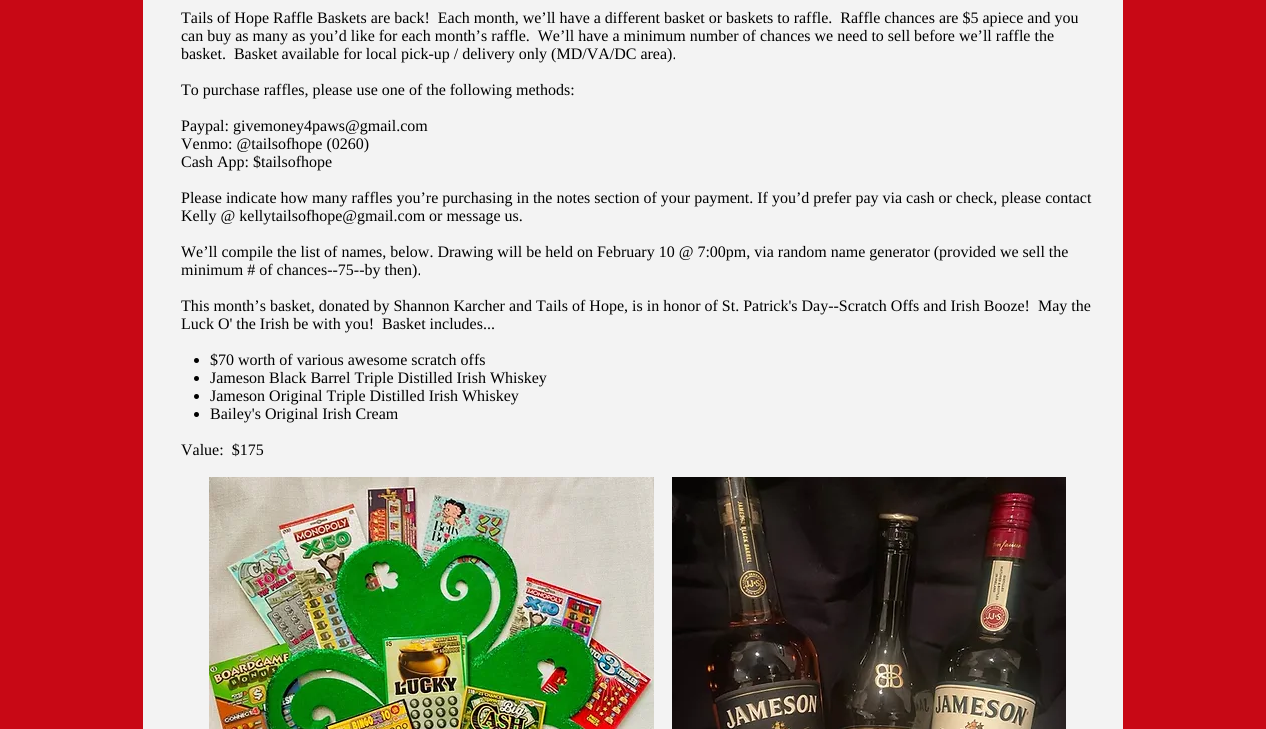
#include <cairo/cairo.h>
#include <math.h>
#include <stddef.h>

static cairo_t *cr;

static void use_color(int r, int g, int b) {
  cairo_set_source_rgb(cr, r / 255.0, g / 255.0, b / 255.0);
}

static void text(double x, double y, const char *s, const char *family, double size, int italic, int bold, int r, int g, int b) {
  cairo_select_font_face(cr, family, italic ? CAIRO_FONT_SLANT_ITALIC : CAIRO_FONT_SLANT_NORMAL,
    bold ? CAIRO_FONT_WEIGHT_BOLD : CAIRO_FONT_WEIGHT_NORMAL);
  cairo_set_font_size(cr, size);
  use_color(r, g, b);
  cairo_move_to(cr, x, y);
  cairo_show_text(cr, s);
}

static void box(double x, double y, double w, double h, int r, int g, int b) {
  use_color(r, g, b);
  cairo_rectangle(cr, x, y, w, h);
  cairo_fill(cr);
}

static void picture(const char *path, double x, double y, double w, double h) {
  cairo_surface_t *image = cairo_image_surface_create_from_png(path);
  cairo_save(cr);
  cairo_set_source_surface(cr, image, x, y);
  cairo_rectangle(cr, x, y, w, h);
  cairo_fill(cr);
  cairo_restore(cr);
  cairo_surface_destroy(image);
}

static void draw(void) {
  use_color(200, 8, 21);
  cairo_paint(cr);
  box(143, 0, 980, 729, 243, 243, 243);
  use_color(0, 0, 0);
  cairo_arc(cr, 196.5, 360.5, 2.5, 0, 2 * M_PI);
  cairo_fill(cr);
  cairo_arc(cr, 196.5, 378.5, 2.5, 0, 2 * M_PI);
  cairo_fill(cr);
  cairo_arc(cr, 196.5, 396.5, 2.5, 0, 2 * M_PI);
  cairo_fill(cr);
  cairo_arc(cr, 196.5, 414.5, 2.5, 0, 2 * M_PI);
  cairo_fill(cr);
  picture("img_01.png", 209, 477, 445, 252);
  picture("img_02.png", 672, 477, 394, 252);
  text(181, 23, "Tails of Hope Raffle Baskets are back!  Each month, we’ll have a different basket or baskets to raffle.  Raffle chances are $5 apiece and you", "Liberation Serif", 16, 0, 0, 0, 0, 0);
  text(181, 41, "can buy as many as you’d like for each month’s raffle.  We’ll have a minimum number of chances we need to sell before we’ll raffle the", "Liberation Serif", 16, 0, 0, 0, 0, 0);
  text(181, 59, "basket.  Basket available for local pick-up / delivery only (MD/VA/DC area).", "Liberation Serif", 16, 0, 0, 0, 0, 0);
  text(181, 95, "To purchase raffles, please use one of the following methods:", "Liberation Serif", 16, 0, 0, 0, 0, 0);
  text(181, 131, "Paypal: givemoney4paws@gmail.com", "Liberation Serif", 16, 0, 0, 0, 0, 0);
  text(181, 149, "Venmo: @tailsofhope (0260)", "Liberation Serif", 16, 0, 0, 0, 0, 0);
  text(181, 167, "Cash App: $tailsofhope", "Liberation Serif", 16, 0, 0, 0, 0, 0);
  text(181, 203, "Please indicate how many raffles you’re purchasing in the notes section of your payment. If you’d prefer pay via cash or check, please contact", "Liberation Serif", 16, 0, 0, 0, 0, 0);
  text(181, 221, "Kelly @ kellytailsofhope@gmail.com or message us.", "Liberation Serif", 16, 0, 0, 0, 0, 0);
  text(181, 257, "We’ll compile the list of names, below. Drawing will be held on February 10 @ 7:00pm, via random name generator (provided we sell the", "Liberation Serif", 16, 0, 0, 0, 0, 0);
  text(181, 275, "minimum # of chances--75--by then).", "Liberation Serif", 16, 0, 0, 0, 0, 0);
  text(181, 311, "This month’s basket, donated by Shannon Karcher and Tails of Hope, is in honor of St. Patrick's Day--Scratch Offs and Irish Booze!  May the", "Liberation Serif", 16, 0, 0, 0, 0, 0);
  text(181, 329, "Luck O' the Irish be with you!  Basket includes...", "Liberation Serif", 16, 0, 0, 0, 0, 0);
  text(210, 365, "$70 worth of various awesome scratch offs", "Liberation Serif", 16, 0, 0, 0, 0, 0);
  text(210, 383, "Jameson Black Barrel Triple Distilled Irish Whiskey", "Liberation Serif", 16, 0, 0, 0, 0, 0);
  text(210, 401, "Jameson Original Triple Distilled Irish Whiskey", "Liberation Serif", 16, 0, 0, 0, 0, 0);
  text(210, 419, "Bailey's Original Irish Cream", "Liberation Serif", 16, 0, 0, 0, 0, 0);
  text(181, 455, "Value:  $175", "Liberation Serif", 16, 0, 0, 0, 0, 0);
}

int main(void) {
  cairo_surface_t *surface = cairo_image_surface_create(CAIRO_FORMAT_RGB24, 1266, 729);
  cr = cairo_create(surface);
  cairo_font_options_t *options = cairo_font_options_create();
  cairo_font_options_set_hint_metrics(options, CAIRO_HINT_METRICS_OFF);
  cairo_font_options_set_hint_style(options, CAIRO_HINT_STYLE_NONE);
  cairo_set_font_options(cr, options);
  cairo_set_miter_limit(cr, 4);
  draw();
  cairo_surface_write_to_png(surface, "out.png");
  cairo_font_options_destroy(options);
  cairo_destroy(cr);
  cairo_surface_destroy(surface);
  return 0;
}
